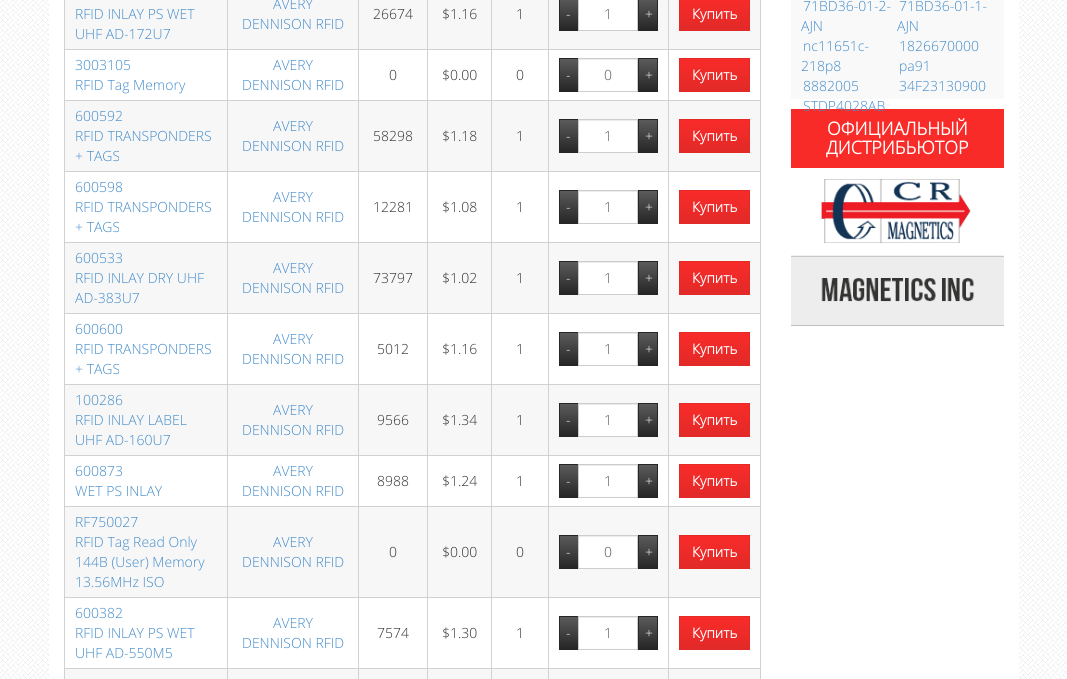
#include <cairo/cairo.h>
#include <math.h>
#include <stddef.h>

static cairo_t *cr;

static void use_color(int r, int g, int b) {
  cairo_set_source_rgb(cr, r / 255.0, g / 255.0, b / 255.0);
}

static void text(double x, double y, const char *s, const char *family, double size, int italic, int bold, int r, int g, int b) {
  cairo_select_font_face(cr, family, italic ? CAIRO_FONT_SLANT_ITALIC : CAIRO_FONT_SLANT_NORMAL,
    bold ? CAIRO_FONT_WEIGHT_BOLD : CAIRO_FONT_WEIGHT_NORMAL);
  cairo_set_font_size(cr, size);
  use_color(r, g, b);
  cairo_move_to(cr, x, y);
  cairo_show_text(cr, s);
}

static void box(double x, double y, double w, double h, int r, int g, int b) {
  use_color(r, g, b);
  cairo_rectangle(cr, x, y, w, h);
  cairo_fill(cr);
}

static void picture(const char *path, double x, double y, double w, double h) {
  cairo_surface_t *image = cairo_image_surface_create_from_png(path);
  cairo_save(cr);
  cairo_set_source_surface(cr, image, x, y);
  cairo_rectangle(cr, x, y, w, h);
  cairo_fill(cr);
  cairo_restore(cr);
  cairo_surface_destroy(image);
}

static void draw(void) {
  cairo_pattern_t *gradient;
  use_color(255, 255, 255);
  cairo_paint(cr);
  picture("img_01.png", 0, 0, 1067, 679);
  box(49, 0, 970, 679, 255, 255, 255);
  box(65, 0, 162, 49, 247, 247, 247);
  box(228, 0, 130, 49, 247, 247, 247);
  box(668, 49, 93, 1, 209, 209, 209);
  box(668, 100, 93, 1, 209, 209, 209);
  box(668, 171, 93, 1, 209, 209, 209);
  box(668, 242, 93, 1, 209, 209, 209);
  box(668, 313, 93, 1, 209, 209, 209);
  box(668, 384, 93, 1, 209, 209, 209);
  box(668, 455, 93, 1, 209, 209, 209);
  box(668, 506, 93, 1, 209, 209, 209);
  box(668, 597, 93, 1, 209, 209, 209);
  box(668, 668, 93, 1, 209, 209, 209);
  box(668, 668, 1, 11, 209, 209, 209);
  box(548, 668, 121, 1, 209, 209, 209);
  box(668, 597, 1, 72, 209, 209, 209);
  box(548, 597, 121, 1, 209, 209, 209);
  box(668, 506, 1, 92, 209, 209, 209);
  box(548, 506, 121, 1, 209, 209, 209);
  box(668, 455, 1, 52, 209, 209, 209);
  box(548, 455, 121, 1, 209, 209, 209);
  box(668, 384, 1, 72, 209, 209, 209);
  box(548, 384, 121, 1, 209, 209, 209);
  box(668, 313, 1, 72, 209, 209, 209);
  box(548, 313, 121, 1, 209, 209, 209);
  box(668, 242, 1, 72, 209, 209, 209);
  box(548, 242, 121, 1, 209, 209, 209);
  box(668, 171, 1, 72, 209, 209, 209);
  box(548, 171, 121, 1, 209, 209, 209);
  box(668, 100, 1, 72, 209, 209, 209);
  box(548, 100, 121, 1, 209, 209, 209);
  box(668, 49, 1, 52, 209, 209, 209);
  box(548, 49, 121, 1, 209, 209, 209);
  box(548, 668, 1, 11, 209, 209, 209);
  box(491, 668, 58, 1, 209, 209, 209);
  box(548, 597, 1, 72, 209, 209, 209);
  box(491, 597, 58, 1, 209, 209, 209);
  box(548, 506, 1, 92, 209, 209, 209);
  box(491, 506, 58, 1, 209, 209, 209);
  box(548, 455, 1, 52, 209, 209, 209);
  box(491, 455, 58, 1, 209, 209, 209);
  box(548, 384, 1, 72, 209, 209, 209);
  box(491, 384, 58, 1, 209, 209, 209);
  box(548, 313, 1, 72, 209, 209, 209);
  box(491, 313, 58, 1, 209, 209, 209);
  box(548, 242, 1, 72, 209, 209, 209);
  box(491, 242, 58, 1, 209, 209, 209);
  box(548, 171, 1, 72, 209, 209, 209);
  box(491, 171, 58, 1, 209, 209, 209);
  box(548, 100, 1, 72, 209, 209, 209);
  box(491, 100, 58, 1, 209, 209, 209);
  box(548, 49, 1, 52, 209, 209, 209);
  box(491, 49, 58, 1, 209, 209, 209);
  box(491, 668, 1, 11, 209, 209, 209);
  box(427, 668, 65, 1, 209, 209, 209);
  box(491, 597, 1, 72, 209, 209, 209);
  box(427, 597, 65, 1, 209, 209, 209);
  box(491, 506, 1, 92, 209, 209, 209);
  box(427, 506, 65, 1, 209, 209, 209);
  box(491, 455, 1, 52, 209, 209, 209);
  box(427, 455, 65, 1, 209, 209, 209);
  box(491, 384, 1, 72, 209, 209, 209);
  box(427, 384, 65, 1, 209, 209, 209);
  box(491, 313, 1, 72, 209, 209, 209);
  box(427, 313, 65, 1, 209, 209, 209);
  box(491, 242, 1, 72, 209, 209, 209);
  box(427, 242, 65, 1, 209, 209, 209);
  box(491, 171, 1, 72, 209, 209, 209);
  box(427, 171, 65, 1, 209, 209, 209);
  box(491, 100, 1, 72, 209, 209, 209);
  box(427, 100, 65, 1, 209, 209, 209);
  box(491, 49, 1, 52, 209, 209, 209);
  box(427, 49, 65, 1, 209, 209, 209);
  box(427, 668, 1, 11, 209, 209, 209);
  box(358, 668, 70, 1, 209, 209, 209);
  box(427, 597, 1, 72, 209, 209, 209);
  box(358, 597, 70, 1, 209, 209, 209);
  box(427, 506, 1, 92, 209, 209, 209);
  box(358, 506, 70, 1, 209, 209, 209);
  box(427, 455, 1, 52, 209, 209, 209);
  box(358, 455, 70, 1, 209, 209, 209);
  box(427, 384, 1, 72, 209, 209, 209);
  box(358, 384, 70, 1, 209, 209, 209);
  box(427, 313, 1, 72, 209, 209, 209);
  box(358, 313, 70, 1, 209, 209, 209);
  box(427, 242, 1, 72, 209, 209, 209);
  box(358, 242, 70, 1, 209, 209, 209);
  box(427, 171, 1, 72, 209, 209, 209);
  box(358, 171, 70, 1, 209, 209, 209);
  box(427, 100, 1, 72, 209, 209, 209);
  box(358, 100, 70, 1, 209, 209, 209);
  box(427, 49, 1, 52, 209, 209, 209);
  box(358, 49, 70, 1, 209, 209, 209);
  box(358, 668, 1, 11, 209, 209, 209);
  box(227, 668, 132, 1, 209, 209, 209);
  box(358, 597, 1, 72, 209, 209, 209);
  box(227, 597, 132, 1, 209, 209, 209);
  box(358, 506, 1, 92, 209, 209, 209);
  box(227, 506, 132, 1, 209, 209, 209);
  box(358, 455, 1, 52, 209, 209, 209);
  box(227, 455, 132, 1, 209, 209, 209);
  box(358, 384, 1, 72, 209, 209, 209);
  box(227, 384, 132, 1, 209, 209, 209);
  box(358, 313, 1, 72, 209, 209, 209);
  box(227, 313, 132, 1, 209, 209, 209);
  box(358, 242, 1, 72, 209, 209, 209);
  box(227, 242, 132, 1, 209, 209, 209);
  box(358, 171, 1, 72, 209, 209, 209);
  box(227, 171, 132, 1, 209, 209, 209);
  box(358, 100, 1, 72, 209, 209, 209);
  box(227, 100, 132, 1, 209, 209, 209);
  box(358, 49, 1, 52, 209, 209, 209);
  box(227, 49, 132, 1, 209, 209, 209);
  box(227, 668, 1, 11, 209, 209, 209);
  box(64, 668, 164, 1, 209, 209, 209);
  box(227, 597, 1, 72, 209, 209, 209);
  box(64, 597, 164, 1, 209, 209, 209);
  box(227, 506, 1, 92, 209, 209, 209);
  box(64, 506, 164, 1, 209, 209, 209);
  box(227, 455, 1, 52, 209, 209, 209);
  box(64, 455, 164, 1, 209, 209, 209);
  box(227, 384, 1, 72, 209, 209, 209);
  box(64, 384, 164, 1, 209, 209, 209);
  box(227, 313, 1, 72, 209, 209, 209);
  box(64, 313, 164, 1, 209, 209, 209);
  box(227, 242, 1, 72, 209, 209, 209);
  box(64, 242, 164, 1, 209, 209, 209);
  box(227, 171, 1, 72, 209, 209, 209);
  box(64, 171, 164, 1, 209, 209, 209);
  box(227, 100, 1, 72, 209, 209, 209);
  box(64, 100, 164, 1, 209, 209, 209);
  box(227, 49, 1, 52, 209, 209, 209);
  box(64, 49, 164, 1, 209, 209, 209);
  box(227, 0, 1, 50, 209, 209, 209);
  box(359, 0, 68, 49, 247, 247, 247);
  box(358, 0, 1, 50, 209, 209, 209);
  box(428, 0, 63, 49, 247, 247, 247);
  box(427, 0, 1, 50, 209, 209, 209);
  box(492, 0, 56, 49, 247, 247, 247);
  box(491, 0, 1, 50, 209, 209, 209);
  box(549, 0, 119, 49, 247, 247, 247);
  box(548, 0, 1, 50, 209, 209, 209);
  gradient = cairo_pattern_create_linear(569, 30, 569, -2);
  cairo_pattern_add_color_stop_rgba(gradient, 0, 0.149, 0.149, 0.149, 1);
  cairo_pattern_add_color_stop_rgba(gradient, 1, 0.357, 0.357, 0.357, 1);
  cairo_set_source(cr, gradient);
  cairo_pattern_destroy(gradient);
  cairo_rectangle(cr, 560, 0, 18, 30);
  cairo_fill(cr);
  cairo_rectangle(cr, 559.5, -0.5, 19, 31);
  use_color(38, 38, 38);
  cairo_set_line_width(cr, 1);
  cairo_stroke(cr);
  use_color(255, 255, 255);
  cairo_rectangle(cr, 578.5, -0.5, 59, 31);
  cairo_fill_preserve(cr);
  use_color(204, 204, 204);
  cairo_stroke(cr);
  gradient = cairo_pattern_create_linear(648, 30, 648, -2);
  cairo_pattern_add_color_stop_rgba(gradient, 0, 0.149, 0.149, 0.149, 1);
  cairo_pattern_add_color_stop_rgba(gradient, 1, 0.357, 0.357, 0.357, 1);
  cairo_set_source(cr, gradient);
  cairo_pattern_destroy(gradient);
  cairo_rectangle(cr, 639, 0, 18, 30);
  cairo_fill(cr);
  cairo_rectangle(cr, 638.5, -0.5, 19, 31);
  use_color(38, 38, 38);
  cairo_stroke(cr);
  box(669, 0, 91, 49, 247, 247, 247);
  box(668, 0, 1, 50, 209, 209, 209);
  gradient = cairo_pattern_create_linear(715, 30, 715, -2);
  cairo_pattern_add_color_stop_rgba(gradient, 0, 0.886, 0.165, 0.157, 1);
  cairo_pattern_add_color_stop_rgba(gradient, 1, 0.973, 0.169, 0.161, 1);
  cairo_set_source(cr, gradient);
  cairo_pattern_destroy(gradient);
  cairo_rectangle(cr, 680, 0, 69, 30);
  cairo_fill(cr);
  cairo_rectangle(cr, 679.5, -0.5, 70, 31);
  use_color(226, 42, 40);
  cairo_stroke(cr);
  box(64, 668, 1, 11, 209, 209, 209);
  box(64, 597, 1, 72, 209, 209, 209);
  box(64, 506, 1, 92, 209, 209, 209);
  box(64, 455, 1, 52, 209, 209, 209);
  box(64, 384, 1, 72, 209, 209, 209);
  box(64, 313, 1, 72, 209, 209, 209);
  box(64, 242, 1, 72, 209, 209, 209);
  box(64, 171, 1, 72, 209, 209, 209);
  box(64, 100, 1, 72, 209, 209, 209);
  box(64, 0, 1, 101, 209, 209, 209);
  gradient = cairo_pattern_create_linear(569, 91, 569, 59);
  cairo_pattern_add_color_stop_rgba(gradient, 0, 0.149, 0.149, 0.149, 1);
  cairo_pattern_add_color_stop_rgba(gradient, 1, 0.357, 0.357, 0.357, 1);
  cairo_set_source(cr, gradient);
  cairo_pattern_destroy(gradient);
  cairo_rectangle(cr, 560, 59, 18, 32);
  cairo_fill(cr);
  cairo_rectangle(cr, 559.5, 58.5, 19, 33);
  use_color(38, 38, 38);
  cairo_stroke(cr);
  box(579, 59, 58, 1, 236, 236, 236);
  cairo_rectangle(cr, 578.5, 58.5, 59, 33);
  use_color(204, 204, 204);
  cairo_stroke(cr);
  gradient = cairo_pattern_create_linear(648, 91, 648, 59);
  cairo_pattern_add_color_stop_rgba(gradient, 0, 0.149, 0.149, 0.149, 1);
  cairo_pattern_add_color_stop_rgba(gradient, 1, 0.357, 0.357, 0.357, 1);
  cairo_set_source(cr, gradient);
  cairo_pattern_destroy(gradient);
  cairo_rectangle(cr, 639, 59, 18, 32);
  cairo_fill(cr);
  cairo_rectangle(cr, 638.5, 58.5, 19, 33);
  use_color(38, 38, 38);
  cairo_stroke(cr);
  box(760, 668, 1, 11, 209, 209, 209);
  box(760, 597, 1, 72, 209, 209, 209);
  box(760, 506, 1, 92, 209, 209, 209);
  box(760, 455, 1, 52, 209, 209, 209);
  box(760, 384, 1, 72, 209, 209, 209);
  box(760, 313, 1, 72, 209, 209, 209);
  box(760, 242, 1, 72, 209, 209, 209);
  box(760, 171, 1, 72, 209, 209, 209);
  box(760, 100, 1, 72, 209, 209, 209);
  box(760, 0, 1, 101, 209, 209, 209);
  gradient = cairo_pattern_create_linear(715, 91, 715, 59);
  cairo_pattern_add_color_stop_rgba(gradient, 0, 0.886, 0.165, 0.157, 1);
  cairo_pattern_add_color_stop_rgba(gradient, 1, 0.973, 0.169, 0.161, 1);
  cairo_set_source(cr, gradient);
  cairo_pattern_destroy(gradient);
  cairo_rectangle(cr, 680, 59, 69, 32);
  cairo_fill(cr);
  cairo_rectangle(cr, 679.5, 58.5, 70, 33);
  use_color(226, 42, 40);
  cairo_stroke(cr);
  box(65, 101, 162, 70, 247, 247, 247);
  box(228, 101, 130, 70, 247, 247, 247);
  box(359, 101, 68, 70, 247, 247, 247);
  box(428, 101, 63, 70, 247, 247, 247);
  box(492, 101, 56, 70, 247, 247, 247);
  box(549, 101, 119, 70, 247, 247, 247);
  gradient = cairo_pattern_create_linear(569, 152, 569, 120);
  cairo_pattern_add_color_stop_rgba(gradient, 0, 0.149, 0.149, 0.149, 1);
  cairo_pattern_add_color_stop_rgba(gradient, 1, 0.357, 0.357, 0.357, 1);
  cairo_set_source(cr, gradient);
  cairo_pattern_destroy(gradient);
  cairo_rectangle(cr, 560, 120, 18, 32);
  cairo_fill(cr);
  cairo_rectangle(cr, 559.5, 119.5, 19, 33);
  use_color(38, 38, 38);
  cairo_stroke(cr);
  box(579, 121, 58, 31, 255, 255, 255);
  box(579, 120, 58, 1, 236, 236, 236);
  cairo_rectangle(cr, 578.5, 119.5, 59, 33);
  use_color(204, 204, 204);
  cairo_stroke(cr);
  gradient = cairo_pattern_create_linear(648, 152, 648, 120);
  cairo_pattern_add_color_stop_rgba(gradient, 0, 0.149, 0.149, 0.149, 1);
  cairo_pattern_add_color_stop_rgba(gradient, 1, 0.357, 0.357, 0.357, 1);
  cairo_set_source(cr, gradient);
  cairo_pattern_destroy(gradient);
  cairo_rectangle(cr, 639, 120, 18, 32);
  cairo_fill(cr);
  cairo_rectangle(cr, 638.5, 119.5, 19, 33);
  use_color(38, 38, 38);
  cairo_stroke(cr);
  box(669, 101, 91, 70, 247, 247, 247);
  gradient = cairo_pattern_create_linear(715, 152, 715, 120);
  cairo_pattern_add_color_stop_rgba(gradient, 0, 0.886, 0.165, 0.157, 1);
  cairo_pattern_add_color_stop_rgba(gradient, 1, 0.973, 0.169, 0.161, 1);
  cairo_set_source(cr, gradient);
  cairo_pattern_destroy(gradient);
  cairo_rectangle(cr, 680, 120, 69, 32);
  cairo_fill(cr);
  cairo_rectangle(cr, 679.5, 119.5, 70, 33);
  use_color(226, 42, 40);
  cairo_stroke(cr);
  gradient = cairo_pattern_create_linear(569, 223, 569, 191);
  cairo_pattern_add_color_stop_rgba(gradient, 0, 0.149, 0.149, 0.149, 1);
  cairo_pattern_add_color_stop_rgba(gradient, 1, 0.357, 0.357, 0.357, 1);
  cairo_set_source(cr, gradient);
  cairo_pattern_destroy(gradient);
  cairo_rectangle(cr, 560, 191, 18, 32);
  cairo_fill(cr);
  cairo_rectangle(cr, 559.5, 190.5, 19, 33);
  use_color(38, 38, 38);
  cairo_stroke(cr);
  box(579, 191, 58, 1, 236, 236, 236);
  cairo_rectangle(cr, 578.5, 190.5, 59, 33);
  use_color(204, 204, 204);
  cairo_stroke(cr);
  gradient = cairo_pattern_create_linear(648, 223, 648, 191);
  cairo_pattern_add_color_stop_rgba(gradient, 0, 0.149, 0.149, 0.149, 1);
  cairo_pattern_add_color_stop_rgba(gradient, 1, 0.357, 0.357, 0.357, 1);
  cairo_set_source(cr, gradient);
  cairo_pattern_destroy(gradient);
  cairo_rectangle(cr, 639, 191, 18, 32);
  cairo_fill(cr);
  cairo_rectangle(cr, 638.5, 190.5, 19, 33);
  use_color(38, 38, 38);
  cairo_stroke(cr);
  gradient = cairo_pattern_create_linear(715, 223, 715, 191);
  cairo_pattern_add_color_stop_rgba(gradient, 0, 0.886, 0.165, 0.157, 1);
  cairo_pattern_add_color_stop_rgba(gradient, 1, 0.973, 0.169, 0.161, 1);
  cairo_set_source(cr, gradient);
  cairo_pattern_destroy(gradient);
  cairo_rectangle(cr, 680, 191, 69, 32);
  cairo_fill(cr);
  cairo_rectangle(cr, 679.5, 190.5, 70, 33);
  use_color(226, 42, 40);
  cairo_stroke(cr);
  box(65, 243, 162, 70, 247, 247, 247);
  box(228, 243, 130, 70, 247, 247, 247);
  box(359, 243, 68, 70, 247, 247, 247);
  box(428, 243, 63, 70, 247, 247, 247);
  box(492, 243, 56, 70, 247, 247, 247);
  box(549, 243, 119, 70, 247, 247, 247);
  gradient = cairo_pattern_create_linear(569, 294, 569, 262);
  cairo_pattern_add_color_stop_rgba(gradient, 0, 0.149, 0.149, 0.149, 1);
  cairo_pattern_add_color_stop_rgba(gradient, 1, 0.357, 0.357, 0.357, 1);
  cairo_set_source(cr, gradient);
  cairo_pattern_destroy(gradient);
  cairo_rectangle(cr, 560, 262, 18, 32);
  cairo_fill(cr);
  cairo_rectangle(cr, 559.5, 261.5, 19, 33);
  use_color(38, 38, 38);
  cairo_stroke(cr);
  box(579, 263, 58, 31, 255, 255, 255);
  box(579, 262, 58, 1, 236, 236, 236);
  cairo_rectangle(cr, 578.5, 261.5, 59, 33);
  use_color(204, 204, 204);
  cairo_stroke(cr);
  gradient = cairo_pattern_create_linear(648, 294, 648, 262);
  cairo_pattern_add_color_stop_rgba(gradient, 0, 0.149, 0.149, 0.149, 1);
  cairo_pattern_add_color_stop_rgba(gradient, 1, 0.357, 0.357, 0.357, 1);
  cairo_set_source(cr, gradient);
  cairo_pattern_destroy(gradient);
  cairo_rectangle(cr, 639, 262, 18, 32);
  cairo_fill(cr);
  cairo_rectangle(cr, 638.5, 261.5, 19, 33);
  use_color(38, 38, 38);
  cairo_stroke(cr);
  box(669, 243, 91, 70, 247, 247, 247);
  gradient = cairo_pattern_create_linear(715, 294, 715, 262);
  cairo_pattern_add_color_stop_rgba(gradient, 0, 0.886, 0.165, 0.157, 1);
  cairo_pattern_add_color_stop_rgba(gradient, 1, 0.973, 0.169, 0.161, 1);
  cairo_set_source(cr, gradient);
  cairo_pattern_destroy(gradient);
  cairo_rectangle(cr, 680, 262, 69, 32);
  cairo_fill(cr);
  cairo_rectangle(cr, 679.5, 261.5, 70, 33);
  use_color(226, 42, 40);
  cairo_stroke(cr);
  gradient = cairo_pattern_create_linear(569, 365, 569, 333);
  cairo_pattern_add_color_stop_rgba(gradient, 0, 0.149, 0.149, 0.149, 1);
  cairo_pattern_add_color_stop_rgba(gradient, 1, 0.357, 0.357, 0.357, 1);
  cairo_set_source(cr, gradient);
  cairo_pattern_destroy(gradient);
  cairo_rectangle(cr, 560, 333, 18, 32);
  cairo_fill(cr);
  cairo_rectangle(cr, 559.5, 332.5, 19, 33);
  use_color(38, 38, 38);
  cairo_stroke(cr);
  box(579, 333, 58, 1, 236, 236, 236);
  cairo_rectangle(cr, 578.5, 332.5, 59, 33);
  use_color(204, 204, 204);
  cairo_stroke(cr);
  gradient = cairo_pattern_create_linear(648, 365, 648, 333);
  cairo_pattern_add_color_stop_rgba(gradient, 0, 0.149, 0.149, 0.149, 1);
  cairo_pattern_add_color_stop_rgba(gradient, 1, 0.357, 0.357, 0.357, 1);
  cairo_set_source(cr, gradient);
  cairo_pattern_destroy(gradient);
  cairo_rectangle(cr, 639, 333, 18, 32);
  cairo_fill(cr);
  cairo_rectangle(cr, 638.5, 332.5, 19, 33);
  use_color(38, 38, 38);
  cairo_stroke(cr);
  gradient = cairo_pattern_create_linear(715, 365, 715, 333);
  cairo_pattern_add_color_stop_rgba(gradient, 0, 0.886, 0.165, 0.157, 1);
  cairo_pattern_add_color_stop_rgba(gradient, 1, 0.973, 0.169, 0.161, 1);
  cairo_set_source(cr, gradient);
  cairo_pattern_destroy(gradient);
  cairo_rectangle(cr, 680, 333, 69, 32);
  cairo_fill(cr);
  cairo_rectangle(cr, 679.5, 332.5, 70, 33);
  use_color(226, 42, 40);
  cairo_stroke(cr);
  box(65, 385, 162, 70, 247, 247, 247);
  box(228, 385, 130, 70, 247, 247, 247);
  box(359, 385, 68, 70, 247, 247, 247);
  box(428, 385, 63, 70, 247, 247, 247);
  box(492, 385, 56, 70, 247, 247, 247);
  box(549, 385, 119, 70, 247, 247, 247);
  gradient = cairo_pattern_create_linear(569, 436, 569, 404);
  cairo_pattern_add_color_stop_rgba(gradient, 0, 0.149, 0.149, 0.149, 1);
  cairo_pattern_add_color_stop_rgba(gradient, 1, 0.357, 0.357, 0.357, 1);
  cairo_set_source(cr, gradient);
  cairo_pattern_destroy(gradient);
  cairo_rectangle(cr, 560, 404, 18, 32);
  cairo_fill(cr);
  cairo_rectangle(cr, 559.5, 403.5, 19, 33);
  use_color(38, 38, 38);
  cairo_stroke(cr);
  box(579, 405, 58, 31, 255, 255, 255);
  box(579, 404, 58, 1, 236, 236, 236);
  cairo_rectangle(cr, 578.5, 403.5, 59, 33);
  use_color(204, 204, 204);
  cairo_stroke(cr);
  gradient = cairo_pattern_create_linear(648, 436, 648, 404);
  cairo_pattern_add_color_stop_rgba(gradient, 0, 0.149, 0.149, 0.149, 1);
  cairo_pattern_add_color_stop_rgba(gradient, 1, 0.357, 0.357, 0.357, 1);
  cairo_set_source(cr, gradient);
  cairo_pattern_destroy(gradient);
  cairo_rectangle(cr, 639, 404, 18, 32);
  cairo_fill(cr);
  cairo_rectangle(cr, 638.5, 403.5, 19, 33);
  use_color(38, 38, 38);
  cairo_stroke(cr);
  box(669, 385, 91, 70, 247, 247, 247);
  gradient = cairo_pattern_create_linear(715, 436, 715, 404);
  cairo_pattern_add_color_stop_rgba(gradient, 0, 0.886, 0.165, 0.157, 1);
  cairo_pattern_add_color_stop_rgba(gradient, 1, 0.973, 0.169, 0.161, 1);
  cairo_set_source(cr, gradient);
  cairo_pattern_destroy(gradient);
  cairo_rectangle(cr, 680, 404, 69, 32);
  cairo_fill(cr);
  cairo_rectangle(cr, 679.5, 403.5, 70, 33);
  use_color(226, 42, 40);
  cairo_stroke(cr);
  gradient = cairo_pattern_create_linear(569, 497, 569, 465);
  cairo_pattern_add_color_stop_rgba(gradient, 0, 0.149, 0.149, 0.149, 1);
  cairo_pattern_add_color_stop_rgba(gradient, 1, 0.357, 0.357, 0.357, 1);
  cairo_set_source(cr, gradient);
  cairo_pattern_destroy(gradient);
  cairo_rectangle(cr, 560, 465, 18, 32);
  cairo_fill(cr);
  cairo_rectangle(cr, 559.5, 464.5, 19, 33);
  use_color(38, 38, 38);
  cairo_stroke(cr);
  box(579, 465, 58, 1, 236, 236, 236);
  cairo_rectangle(cr, 578.5, 464.5, 59, 33);
  use_color(204, 204, 204);
  cairo_stroke(cr);
  gradient = cairo_pattern_create_linear(648, 497, 648, 465);
  cairo_pattern_add_color_stop_rgba(gradient, 0, 0.149, 0.149, 0.149, 1);
  cairo_pattern_add_color_stop_rgba(gradient, 1, 0.357, 0.357, 0.357, 1);
  cairo_set_source(cr, gradient);
  cairo_pattern_destroy(gradient);
  cairo_rectangle(cr, 639, 465, 18, 32);
  cairo_fill(cr);
  cairo_rectangle(cr, 638.5, 464.5, 19, 33);
  use_color(38, 38, 38);
  cairo_stroke(cr);
  gradient = cairo_pattern_create_linear(715, 497, 715, 465);
  cairo_pattern_add_color_stop_rgba(gradient, 0, 0.886, 0.165, 0.157, 1);
  cairo_pattern_add_color_stop_rgba(gradient, 1, 0.973, 0.169, 0.161, 1);
  cairo_set_source(cr, gradient);
  cairo_pattern_destroy(gradient);
  cairo_rectangle(cr, 680, 465, 69, 32);
  cairo_fill(cr);
  cairo_rectangle(cr, 679.5, 464.5, 70, 33);
  use_color(226, 42, 40);
  cairo_stroke(cr);
  box(65, 507, 162, 90, 247, 247, 247);
  box(228, 507, 130, 90, 247, 247, 247);
  box(359, 507, 68, 90, 247, 247, 247);
  box(428, 507, 63, 90, 247, 247, 247);
  box(492, 507, 56, 90, 247, 247, 247);
  box(549, 507, 119, 90, 247, 247, 247);
  gradient = cairo_pattern_create_linear(569, 568, 569, 536);
  cairo_pattern_add_color_stop_rgba(gradient, 0, 0.149, 0.149, 0.149, 1);
  cairo_pattern_add_color_stop_rgba(gradient, 1, 0.357, 0.357, 0.357, 1);
  cairo_set_source(cr, gradient);
  cairo_pattern_destroy(gradient);
  cairo_rectangle(cr, 560, 536, 18, 32);
  cairo_fill(cr);
  cairo_rectangle(cr, 559.5, 535.5, 19, 33);
  use_color(38, 38, 38);
  cairo_stroke(cr);
  box(579, 537, 58, 31, 255, 255, 255);
  box(579, 536, 58, 1, 236, 236, 236);
  cairo_rectangle(cr, 578.5, 535.5, 59, 33);
  use_color(204, 204, 204);
  cairo_stroke(cr);
  gradient = cairo_pattern_create_linear(648, 568, 648, 536);
  cairo_pattern_add_color_stop_rgba(gradient, 0, 0.149, 0.149, 0.149, 1);
  cairo_pattern_add_color_stop_rgba(gradient, 1, 0.357, 0.357, 0.357, 1);
  cairo_set_source(cr, gradient);
  cairo_pattern_destroy(gradient);
  cairo_rectangle(cr, 639, 536, 18, 32);
  cairo_fill(cr);
  cairo_rectangle(cr, 638.5, 535.5, 19, 33);
  use_color(38, 38, 38);
  cairo_stroke(cr);
  box(669, 507, 91, 90, 247, 247, 247);
  gradient = cairo_pattern_create_linear(715, 568, 715, 536);
  cairo_pattern_add_color_stop_rgba(gradient, 0, 0.886, 0.165, 0.157, 1);
  cairo_pattern_add_color_stop_rgba(gradient, 1, 0.973, 0.169, 0.161, 1);
  cairo_set_source(cr, gradient);
  cairo_pattern_destroy(gradient);
  cairo_rectangle(cr, 680, 536, 69, 32);
  cairo_fill(cr);
  cairo_rectangle(cr, 679.5, 535.5, 70, 33);
  use_color(226, 42, 40);
  cairo_stroke(cr);
  gradient = cairo_pattern_create_linear(569, 649, 569, 617);
  cairo_pattern_add_color_stop_rgba(gradient, 0, 0.149, 0.149, 0.149, 1);
  cairo_pattern_add_color_stop_rgba(gradient, 1, 0.357, 0.357, 0.357, 1);
  cairo_set_source(cr, gradient);
  cairo_pattern_destroy(gradient);
  cairo_rectangle(cr, 560, 617, 18, 32);
  cairo_fill(cr);
  cairo_rectangle(cr, 559.5, 616.5, 19, 33);
  use_color(38, 38, 38);
  cairo_stroke(cr);
  box(579, 617, 58, 1, 236, 236, 236);
  cairo_rectangle(cr, 578.5, 616.5, 59, 33);
  use_color(204, 204, 204);
  cairo_stroke(cr);
  gradient = cairo_pattern_create_linear(648, 649, 648, 617);
  cairo_pattern_add_color_stop_rgba(gradient, 0, 0.149, 0.149, 0.149, 1);
  cairo_pattern_add_color_stop_rgba(gradient, 1, 0.357, 0.357, 0.357, 1);
  cairo_set_source(cr, gradient);
  cairo_pattern_destroy(gradient);
  cairo_rectangle(cr, 639, 617, 18, 32);
  cairo_fill(cr);
  cairo_rectangle(cr, 638.5, 616.5, 19, 33);
  use_color(38, 38, 38);
  cairo_stroke(cr);
  gradient = cairo_pattern_create_linear(715, 649, 715, 617);
  cairo_pattern_add_color_stop_rgba(gradient, 0, 0.886, 0.165, 0.157, 1);
  cairo_pattern_add_color_stop_rgba(gradient, 1, 0.973, 0.169, 0.161, 1);
  cairo_set_source(cr, gradient);
  cairo_pattern_destroy(gradient);
  cairo_rectangle(cr, 680, 617, 69, 32);
  cairo_fill(cr);
  cairo_rectangle(cr, 679.5, 616.5, 70, 33);
  use_color(226, 42, 40);
  cairo_stroke(cr);
  box(65, 669, 162, 10, 247, 247, 247);
  box(228, 669, 130, 10, 247, 247, 247);
  box(359, 669, 68, 10, 247, 247, 247);
  box(428, 669, 63, 10, 247, 247, 247);
  box(492, 669, 56, 10, 247, 247, 247);
  box(549, 669, 119, 10, 247, 247, 247);
  box(669, 669, 91, 10, 247, 247, 247);
  box(791, 0, 213, 99, 249, 249, 249);
  box(791, 109, 213, 59, 248, 43, 41);
  picture("img_02.png", 791, 179, 213, 147);
  text(75, 19, "RFID INLAY PS WET", "Open Sans Light", 14, 0, 0, 66, 139, 202);
  text(75, 39, "UHF AD-172U7", "Open Sans Light", 14, 0, 0, 66, 139, 202);
  text(273, 9, "AVERY", "Open Sans Light", 14, 0, 0, 66, 139, 202);
  text(242, 29, "DENNISON RFID", "Open Sans Light", 14, 0, 0, 66, 139, 202);
  text(373, 19, "26674", "Open Sans Light", 14, 0, 0, 51, 51, 51);
  text(442, 19, "$1.16", "Open Sans Light", 14, 0, 0, 51, 51, 51);
  text(516, 19, "1", "Open Sans Light", 14, 0, 0, 51, 51, 51);
  text(566, 19, "-", "Open Sans Light", 14, 0, 0, 255, 255, 255);
  text(604, 19, "1", "Open Sans Light", 14, 0, 0, 85, 85, 85);
  text(645, 19, "+", "Open Sans Light", 14, 0, 0, 255, 255, 255);
  text(692, 19, "Купить", "Open Sans", 14, 0, 1, 255, 255, 255);
  text(75, 70, "3003105", "Open Sans Light", 14, 0, 0, 66, 139, 202);
  text(75, 90, "RFID Tag Memory", "Open Sans Light", 14, 0, 0, 66, 139, 202);
  text(273, 70, "AVERY", "Open Sans Light", 14, 0, 0, 66, 139, 202);
  text(242, 90, "DENNISON RFID", "Open Sans Light", 14, 0, 0, 66, 139, 202);
  text(389, 80, "0", "Open Sans Light", 14, 0, 0, 51, 51, 51);
  text(442, 80, "$0.00", "Open Sans Light", 14, 0, 0, 51, 51, 51);
  text(516, 80, "0", "Open Sans Light", 14, 0, 0, 51, 51, 51);
  text(566, 80, "-", "Open Sans Light", 14, 0, 0, 255, 255, 255);
  text(604, 80, "0", "Open Sans Light", 14, 0, 0, 85, 85, 85);
  text(645, 80, "+", "Open Sans Light", 14, 0, 0, 255, 255, 255);
  text(692, 80, "Купить", "Open Sans", 14, 0, 1, 255, 255, 255);
  text(75, 121, "600592", "Open Sans Light", 14, 0, 0, 66, 139, 202);
  text(75, 141, "RFID TRANSPONDERS", "Open Sans Light", 14, 0, 0, 66, 139, 202);
  text(75, 161, "+ TAGS", "Open Sans Light", 14, 0, 0, 66, 139, 202);
  text(273, 131, "AVERY", "Open Sans Light", 14, 0, 0, 66, 139, 202);
  text(242, 151, "DENNISON RFID", "Open Sans Light", 14, 0, 0, 66, 139, 202);
  text(373, 141, "58298", "Open Sans Light", 14, 0, 0, 51, 51, 51);
  text(442, 141, "$1.18", "Open Sans Light", 14, 0, 0, 51, 51, 51);
  text(516, 141, "1", "Open Sans Light", 14, 0, 0, 51, 51, 51);
  text(566, 141, "-", "Open Sans Light", 14, 0, 0, 255, 255, 255);
  text(604, 141, "1", "Open Sans Light", 14, 0, 0, 85, 85, 85);
  text(645, 141, "+", "Open Sans Light", 14, 0, 0, 255, 255, 255);
  text(692, 141, "Купить", "Open Sans", 14, 0, 1, 255, 255, 255);
  text(75, 192, "600598", "Open Sans Light", 14, 0, 0, 66, 139, 202);
  text(75, 212, "RFID TRANSPONDERS", "Open Sans Light", 14, 0, 0, 66, 139, 202);
  text(75, 232, "+ TAGS", "Open Sans Light", 14, 0, 0, 66, 139, 202);
  text(273, 202, "AVERY", "Open Sans Light", 14, 0, 0, 66, 139, 202);
  text(242, 222, "DENNISON RFID", "Open Sans Light", 14, 0, 0, 66, 139, 202);
  text(373, 212, "12281", "Open Sans Light", 14, 0, 0, 51, 51, 51);
  text(442, 212, "$1.08", "Open Sans Light", 14, 0, 0, 51, 51, 51);
  text(516, 212, "1", "Open Sans Light", 14, 0, 0, 51, 51, 51);
  text(566, 212, "-", "Open Sans Light", 14, 0, 0, 255, 255, 255);
  text(604, 212, "1", "Open Sans Light", 14, 0, 0, 85, 85, 85);
  text(645, 212, "+", "Open Sans Light", 14, 0, 0, 255, 255, 255);
  text(692, 212, "Купить", "Open Sans", 14, 0, 1, 255, 255, 255);
  text(75, 263, "600533", "Open Sans Light", 14, 0, 0, 66, 139, 202);
  text(75, 283, "RFID INLAY DRY UHF", "Open Sans Light", 14, 0, 0, 66, 139, 202);
  text(75, 303, "AD-383U7", "Open Sans Light", 14, 0, 0, 66, 139, 202);
  text(273, 273, "AVERY", "Open Sans Light", 14, 0, 0, 66, 139, 202);
  text(242, 293, "DENNISON RFID", "Open Sans Light", 14, 0, 0, 66, 139, 202);
  text(373, 283, "73797", "Open Sans Light", 14, 0, 0, 51, 51, 51);
  text(442, 283, "$1.02", "Open Sans Light", 14, 0, 0, 51, 51, 51);
  text(516, 283, "1", "Open Sans Light", 14, 0, 0, 51, 51, 51);
  text(566, 283, "-", "Open Sans Light", 14, 0, 0, 255, 255, 255);
  text(604, 283, "1", "Open Sans Light", 14, 0, 0, 85, 85, 85);
  text(645, 283, "+", "Open Sans Light", 14, 0, 0, 255, 255, 255);
  text(692, 283, "Купить", "Open Sans", 14, 0, 1, 255, 255, 255);
  text(75, 334, "600600", "Open Sans Light", 14, 0, 0, 66, 139, 202);
  text(75, 354, "RFID TRANSPONDERS", "Open Sans Light", 14, 0, 0, 66, 139, 202);
  text(75, 374, "+ TAGS", "Open Sans Light", 14, 0, 0, 66, 139, 202);
  text(273, 344, "AVERY", "Open Sans Light", 14, 0, 0, 66, 139, 202);
  text(242, 364, "DENNISON RFID", "Open Sans Light", 14, 0, 0, 66, 139, 202);
  text(377, 354, "5012", "Open Sans Light", 14, 0, 0, 51, 51, 51);
  text(442, 354, "$1.16", "Open Sans Light", 14, 0, 0, 51, 51, 51);
  text(516, 354, "1", "Open Sans Light", 14, 0, 0, 51, 51, 51);
  text(566, 354, "-", "Open Sans Light", 14, 0, 0, 255, 255, 255);
  text(604, 354, "1", "Open Sans Light", 14, 0, 0, 85, 85, 85);
  text(645, 354, "+", "Open Sans Light", 14, 0, 0, 255, 255, 255);
  text(692, 354, "Купить", "Open Sans", 14, 0, 1, 255, 255, 255);
  text(75, 405, "100286", "Open Sans Light", 14, 0, 0, 66, 139, 202);
  text(75, 425, "RFID INLAY LABEL", "Open Sans Light", 14, 0, 0, 66, 139, 202);
  text(75, 445, "UHF AD-160U7", "Open Sans Light", 14, 0, 0, 66, 139, 202);
  text(273, 415, "AVERY", "Open Sans Light", 14, 0, 0, 66, 139, 202);
  text(242, 435, "DENNISON RFID", "Open Sans Light", 14, 0, 0, 66, 139, 202);
  text(377, 425, "9566", "Open Sans Light", 14, 0, 0, 51, 51, 51);
  text(442, 425, "$1.34", "Open Sans Light", 14, 0, 0, 51, 51, 51);
  text(516, 425, "1", "Open Sans Light", 14, 0, 0, 51, 51, 51);
  text(566, 425, "-", "Open Sans Light", 14, 0, 0, 255, 255, 255);
  text(604, 425, "1", "Open Sans Light", 14, 0, 0, 85, 85, 85);
  text(645, 425, "+", "Open Sans Light", 14, 0, 0, 255, 255, 255);
  text(692, 425, "Купить", "Open Sans", 14, 0, 1, 255, 255, 255);
  text(75, 476, "600873", "Open Sans Light", 14, 0, 0, 66, 139, 202);
  text(75, 496, "WET PS INLAY", "Open Sans Light", 14, 0, 0, 66, 139, 202);
  text(273, 476, "AVERY", "Open Sans Light", 14, 0, 0, 66, 139, 202);
  text(242, 496, "DENNISON RFID", "Open Sans Light", 14, 0, 0, 66, 139, 202);
  text(377, 486, "8988", "Open Sans Light", 14, 0, 0, 51, 51, 51);
  text(442, 486, "$1.24", "Open Sans Light", 14, 0, 0, 51, 51, 51);
  text(516, 486, "1", "Open Sans Light", 14, 0, 0, 51, 51, 51);
  text(566, 486, "-", "Open Sans Light", 14, 0, 0, 255, 255, 255);
  text(604, 486, "1", "Open Sans Light", 14, 0, 0, 85, 85, 85);
  text(645, 486, "+", "Open Sans Light", 14, 0, 0, 255, 255, 255);
  text(692, 486, "Купить", "Open Sans", 14, 0, 1, 255, 255, 255);
  text(75, 527, "RF750027", "Open Sans Light", 14, 0, 0, 66, 139, 202);
  text(75, 547, "RFID Tag Read Only", "Open Sans Light", 14, 0, 0, 66, 139, 202);
  text(75, 567, "144B (User) Memory", "Open Sans Light", 14, 0, 0, 66, 139, 202);
  text(75, 587, "13.56MHz ISO", "Open Sans Light", 14, 0, 0, 66, 139, 202);
  text(273, 547, "AVERY", "Open Sans Light", 14, 0, 0, 66, 139, 202);
  text(242, 567, "DENNISON RFID", "Open Sans Light", 14, 0, 0, 66, 139, 202);
  text(389, 557, "0", "Open Sans Light", 14, 0, 0, 51, 51, 51);
  text(442, 557, "$0.00", "Open Sans Light", 14, 0, 0, 51, 51, 51);
  text(516, 557, "0", "Open Sans Light", 14, 0, 0, 51, 51, 51);
  text(566, 557, "-", "Open Sans Light", 14, 0, 0, 255, 255, 255);
  text(604, 557, "0", "Open Sans Light", 14, 0, 0, 85, 85, 85);
  text(645, 557, "+", "Open Sans Light", 14, 0, 0, 255, 255, 255);
  text(692, 557, "Купить", "Open Sans", 14, 0, 1, 255, 255, 255);
  text(75, 618, "600382", "Open Sans Light", 14, 0, 0, 66, 139, 202);
  text(75, 638, "RFID INLAY PS WET", "Open Sans Light", 14, 0, 0, 66, 139, 202);
  text(75, 658, "UHF AD-550M5", "Open Sans Light", 14, 0, 0, 66, 139, 202);
  text(273, 628, "AVERY", "Open Sans Light", 14, 0, 0, 66, 139, 202);
  text(242, 648, "DENNISON RFID", "Open Sans Light", 14, 0, 0, 66, 139, 202);
  text(377, 638, "7574", "Open Sans Light", 14, 0, 0, 51, 51, 51);
  text(442, 638, "$1.30", "Open Sans Light", 14, 0, 0, 51, 51, 51);
  text(516, 638, "1", "Open Sans Light", 14, 0, 0, 51, 51, 51);
  text(566, 638, "-", "Open Sans Light", 14, 0, 0, 255, 255, 255);
  text(604, 638, "1", "Open Sans Light", 14, 0, 0, 85, 85, 85);
  text(645, 638, "+", "Open Sans Light", 14, 0, 0, 255, 255, 255);
  text(692, 638, "Купить", "Open Sans", 14, 0, 1, 255, 255, 255);
  text(803, 11, "71BD36-01-2-", "Open Sans Light", 14, 0, 0, 66, 139, 202);
  text(801, 31, "AJN", "Open Sans Light", 14, 0, 0, 66, 139, 202);
  text(899, 11, "71BD36-01-1-", "Open Sans Light", 14, 0, 0, 66, 139, 202);
  text(897, 31, "AJN", "Open Sans Light", 14, 0, 0, 66, 139, 202);
  text(803, 51, "nc11651c-", "Open Sans Light", 14, 0, 0, 66, 139, 202);
  text(801, 71, "218p8", "Open Sans Light", 14, 0, 0, 66, 139, 202);
  text(899, 51, "1826670000", "Open Sans Light", 14, 0, 0, 66, 139, 202);
  text(899, 71, "pa91", "Open Sans Light", 14, 0, 0, 66, 139, 202);
  text(803, 91, "8882005", "Open Sans Light", 14, 0, 0, 66, 139, 202);
  text(899, 91, "34F23130900", "Open Sans Light", 14, 0, 0, 66, 139, 202);
  text(803, 111, "STDP4028AB", "Open Sans Light", 14, 0, 0, 66, 139, 202);
  text(827, 135, "ОФИЦИАЛЬНЫЙ", "Open Sans", 18, 0, 1, 255, 255, 255);
  text(826, 154, "ДИСТРИБЬЮТОР", "Open Sans", 18, 0, 1, 255, 255, 255);
}

int main(void) {
  cairo_surface_t *surface = cairo_image_surface_create(CAIRO_FORMAT_RGB24, 1067, 679);
  cr = cairo_create(surface);
  cairo_font_options_t *options = cairo_font_options_create();
  cairo_font_options_set_hint_metrics(options, CAIRO_HINT_METRICS_OFF);
  cairo_font_options_set_hint_style(options, CAIRO_HINT_STYLE_NONE);
  cairo_set_font_options(cr, options);
  cairo_set_miter_limit(cr, 4);
  draw();
  cairo_surface_write_to_png(surface, "out.png");
  cairo_font_options_destroy(options);
  cairo_destroy(cr);
  cairo_surface_destroy(surface);
  return 0;
}
